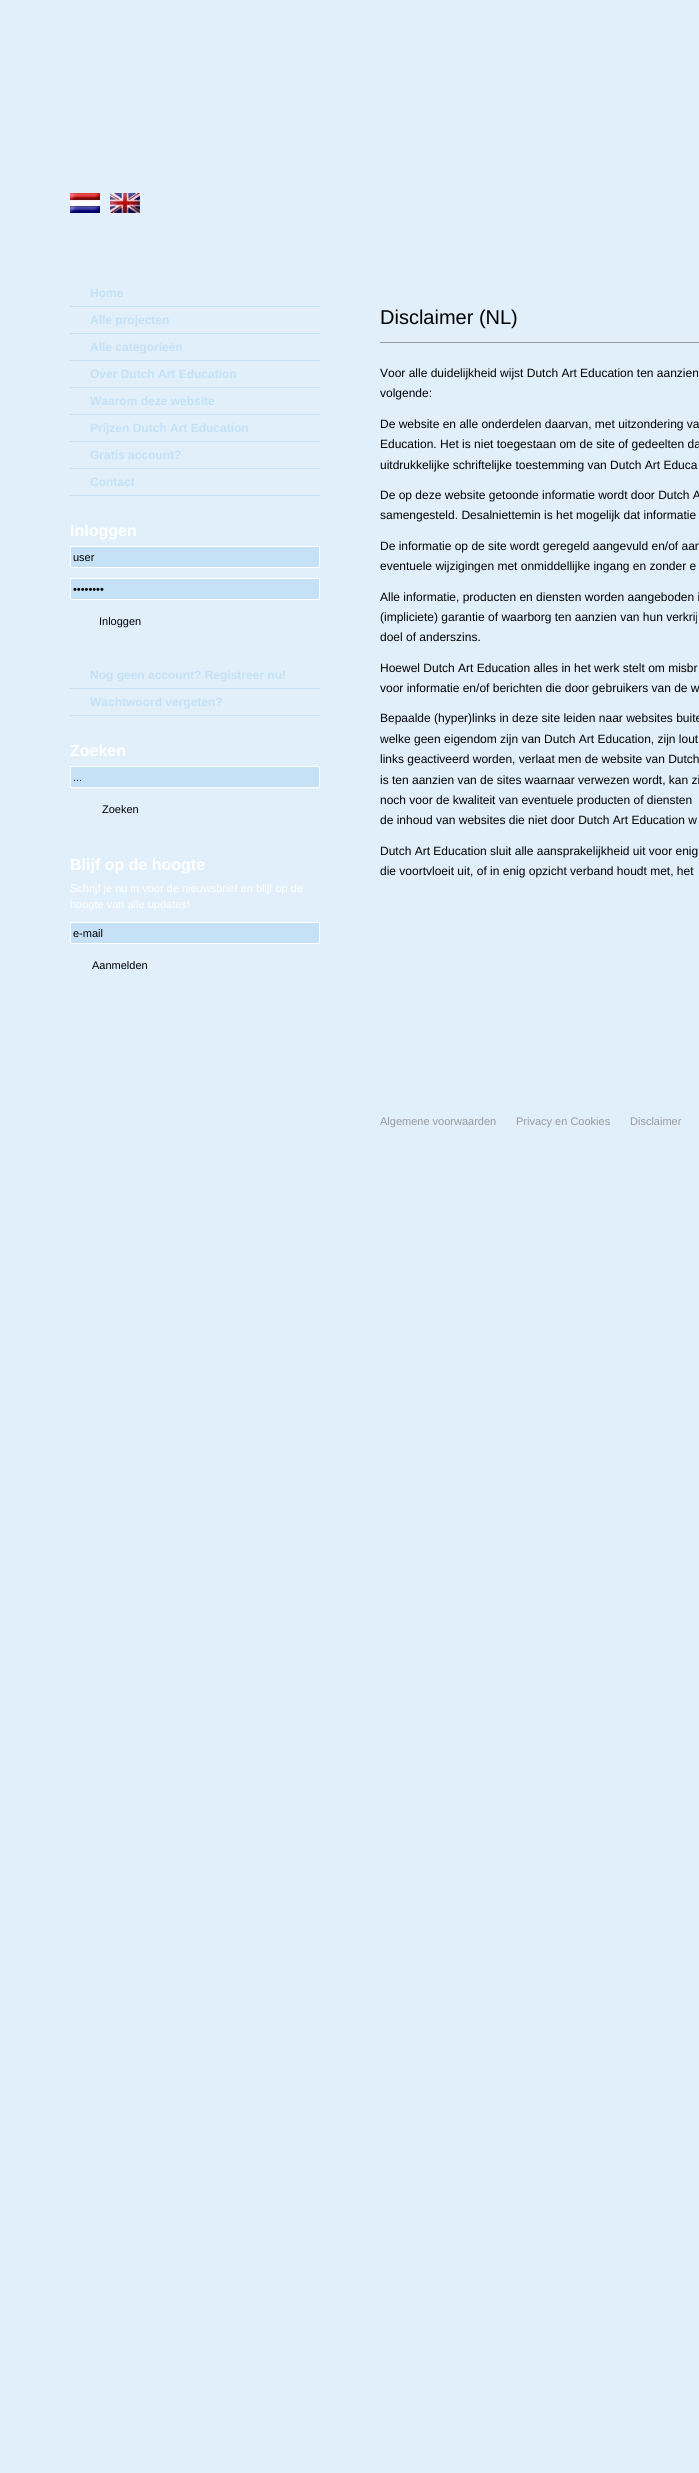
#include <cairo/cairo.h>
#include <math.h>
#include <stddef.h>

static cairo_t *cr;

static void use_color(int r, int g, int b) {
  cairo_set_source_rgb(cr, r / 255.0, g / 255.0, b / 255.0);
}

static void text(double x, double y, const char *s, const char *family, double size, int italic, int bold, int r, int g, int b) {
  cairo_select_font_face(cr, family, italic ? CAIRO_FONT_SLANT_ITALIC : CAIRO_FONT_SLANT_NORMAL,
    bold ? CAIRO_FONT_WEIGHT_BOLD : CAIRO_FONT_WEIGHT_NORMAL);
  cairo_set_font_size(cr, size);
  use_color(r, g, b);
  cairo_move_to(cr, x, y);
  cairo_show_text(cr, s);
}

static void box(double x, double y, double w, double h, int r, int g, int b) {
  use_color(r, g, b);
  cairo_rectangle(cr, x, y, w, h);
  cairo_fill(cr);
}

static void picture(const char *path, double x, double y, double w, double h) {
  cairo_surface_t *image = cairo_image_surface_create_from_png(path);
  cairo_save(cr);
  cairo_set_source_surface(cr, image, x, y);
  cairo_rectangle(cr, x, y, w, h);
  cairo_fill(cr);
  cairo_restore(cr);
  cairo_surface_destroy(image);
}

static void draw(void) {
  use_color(224, 239, 250);
  cairo_paint(cr);
  picture("img_01.png", 70, 193, 30, 20);
  picture("img_02.png", 110, 193, 30, 20);
  box(70, 306, 250, 1, 196, 225, 246);
  box(70, 333, 250, 1, 196, 225, 246);
  box(70, 360, 250, 1, 196, 225, 246);
  box(70, 387, 250, 1, 196, 225, 246);
  box(70, 414, 250, 1, 196, 225, 246);
  box(70, 441, 250, 1, 196, 225, 246);
  box(70, 468, 250, 1, 196, 225, 246);
  box(70, 495, 250, 1, 196, 225, 246);
  cairo_rectangle(cr, 70.5, 546.5, 249, 21);
  cairo_fill_preserve(cr);
  use_color(255, 255, 255);
  cairo_set_line_width(cr, 1);
  cairo_stroke(cr);
  use_color(196, 225, 246);
  cairo_rectangle(cr, 70.5, 578.5, 249, 21);
  cairo_fill_preserve(cr);
  use_color(255, 255, 255);
  cairo_stroke(cr);
  box(70, 688, 250, 1, 196, 225, 246);
  box(70, 715, 250, 1, 196, 225, 246);
  cairo_rectangle(cr, 70.5, 766.5, 249, 21);
  cairo_fill_preserve(cr);
  use_color(255, 255, 255);
  cairo_stroke(cr);
  use_color(196, 225, 246);
  cairo_rectangle(cr, 70.5, 922.5, 249, 21);
  cairo_fill_preserve(cr);
  use_color(255, 255, 255);
  cairo_stroke(cr);
  box(380, 342, 319, 1, 153, 153, 153);
  text(90, 297, "Home", "Liberation Sans", 12, 0, 1, 196, 225, 246);
  text(90, 324, "Alle projecten", "Liberation Sans", 12, 0, 1, 196, 225, 246);
  text(90, 351, "Alle categorieën", "Liberation Sans", 12, 0, 1, 196, 225, 246);
  text(90, 378, "Over Dutch Art Education", "Liberation Sans", 12, 0, 1, 196, 225, 246);
  text(90, 405, "Waarom deze website", "Liberation Sans", 12, 0, 1, 196, 225, 246);
  text(90, 432, "Prijzen Dutch Art Education", "Liberation Sans", 12, 0, 1, 196, 225, 246);
  text(90, 459, "Gratis account?", "Liberation Sans", 12, 0, 1, 196, 225, 246);
  text(90, 486, "Contact", "Liberation Sans", 12, 0, 1, 196, 225, 246);
  text(70, 536, "Inloggen", "Liberation Sans", 16, 0, 1, 255, 255, 255);
  text(73, 561, "user", "Liberation Sans", 11, 0, 0, 0, 0, 0);
  text(73, 593, "••••••••", "Liberation Sans", 11, 0, 0, 0, 0, 0);
  text(99, 625, "Inloggen", "Liberation Sans", 11, 0, 0, 0, 0, 0);
  text(90, 679, "Nog geen account? Registreer nu!", "Liberation Sans", 12, 0, 1, 196, 225, 246);
  text(90, 706, "Wachtwoord vergeten?", "Liberation Sans", 12, 0, 1, 196, 225, 246);
  text(70, 756, "Zoeken", "Liberation Sans", 16, 0, 1, 255, 255, 255);
  text(73, 781, "...", "Liberation Sans", 11, 0, 0, 0, 0, 0);
  text(102, 813, "Zoeken", "Liberation Sans", 11, 0, 0, 0, 0, 0);
  text(70, 870, "Blijf op de hoogte", "Liberation Sans", 16, 0, 1, 255, 255, 255);
  text(70, 892, "Schrijf je nu in voor de nieuwsbrief en blijf op de", "Liberation Sans", 11, 0, 0, 255, 255, 255);
  text(70, 908, "hoogte van alle updates!", "Liberation Sans", 11, 0, 0, 255, 255, 255);
  text(73, 937, "e-mail", "Liberation Sans", 11, 0, 0, 0, 0, 0);
  text(92, 969, "Aanmelden", "Liberation Sans", 11, 0, 0, 0, 0, 0);
  text(380, 324, "Disclaimer (NL)", "Liberation Sans", 20, 0, 0, 0, 0, 0);
  text(380, 377, "Voor alle duidelijkheid wijst Dutch Art Education ten aanzien", "Liberation Sans", 12, 0, 0, 0, 0, 0);
  text(380, 397, "volgende:", "Liberation Sans", 12, 0, 0, 0, 0, 0);
  text(380, 428, "De website en alle onderdelen daarvan, met uitzondering va", "Liberation Sans", 12, 0, 0, 0, 0, 0);
  text(380, 448, "Education. Het is niet toegestaan om de site of gedeelten da", "Liberation Sans", 12, 0, 0, 0, 0, 0);
  text(380, 469, "uitdrukkelijke schriftelijke toestemming van Dutch Art Educa", "Liberation Sans", 12, 0, 0, 0, 0, 0);
  text(380, 499, "De op deze website getoonde informatie wordt door Dutch A", "Liberation Sans", 12, 0, 0, 0, 0, 0);
  text(380, 519, "samengesteld. Desalniettemin is het mogelijk dat informatie", "Liberation Sans", 12, 0, 0, 0, 0, 0);
  text(380, 550, "De informatie op de site wordt geregeld aangevuld en/of aan", "Liberation Sans", 12, 0, 0, 0, 0, 0);
  text(380, 570, "eventuele wijzigingen met onmiddellijke ingang en zonder e", "Liberation Sans", 12, 0, 0, 0, 0, 0);
  text(380, 601, "Alle informatie, producten en diensten worden aangeboden i", "Liberation Sans", 12, 0, 0, 0, 0, 0);
  text(380, 621, "(impliciete) garantie of waarborg ten aanzien van hun verkrij", "Liberation Sans", 12, 0, 0, 0, 0, 0);
  text(380, 641, "doel of anderszins.", "Liberation Sans", 12, 0, 0, 0, 0, 0);
  text(380, 672, "Hoewel Dutch Art Education alles in het werk stelt om misbr", "Liberation Sans", 12, 0, 0, 0, 0, 0);
  text(380, 692, "voor informatie en/of berichten die door gebruikers van de w", "Liberation Sans", 12, 0, 0, 0, 0, 0);
  text(380, 722, "Bepaalde (hyper)links in deze site leiden naar websites buite", "Liberation Sans", 12, 0, 0, 0, 0, 0);
  text(380, 743, "welke geen eigendom zijn van Dutch Art Education, zijn lout", "Liberation Sans", 12, 0, 0, 0, 0, 0);
  text(380, 763, "links geactiveerd worden, verlaat men de website van Dutch", "Liberation Sans", 12, 0, 0, 0, 0, 0);
  text(380, 784, "is ten aanzien van de sites waarnaar verwezen wordt, kan zi", "Liberation Sans", 12, 0, 0, 0, 0, 0);
  text(380, 804, "noch voor de kwaliteit van eventuele producten of diensten", "Liberation Sans", 12, 0, 0, 0, 0, 0);
  text(380, 824, "de inhoud van websites die niet door Dutch Art Education w", "Liberation Sans", 12, 0, 0, 0, 0, 0);
  text(380, 855, "Dutch Art Education sluit alle aansprakelijkheid uit voor enig", "Liberation Sans", 12, 0, 0, 0, 0, 0);
  text(380, 875, "die voortvloeit uit, of in enig opzicht verband houdt met, het", "Liberation Sans", 12, 0, 0, 0, 0, 0);
  text(380, 1125, "Algemene voorwaarden", "Liberation Sans", 11, 0, 0, 153, 153, 153);
  text(516, 1125, "Privacy en Cookies", "Liberation Sans", 11, 0, 0, 153, 153, 153);
  text(630, 1125, "Disclaimer", "Liberation Sans", 11, 0, 0, 153, 153, 153);
}

int main(void) {
  cairo_surface_t *surface = cairo_image_surface_create(CAIRO_FORMAT_RGB24, 699, 2473);
  cr = cairo_create(surface);
  cairo_font_options_t *options = cairo_font_options_create();
  cairo_font_options_set_hint_metrics(options, CAIRO_HINT_METRICS_OFF);
  cairo_font_options_set_hint_style(options, CAIRO_HINT_STYLE_NONE);
  cairo_set_font_options(cr, options);
  cairo_set_miter_limit(cr, 4);
  draw();
  cairo_surface_write_to_png(surface, "out.png");
  cairo_font_options_destroy(options);
  cairo_destroy(cr);
  cairo_surface_destroy(surface);
  return 0;
}
